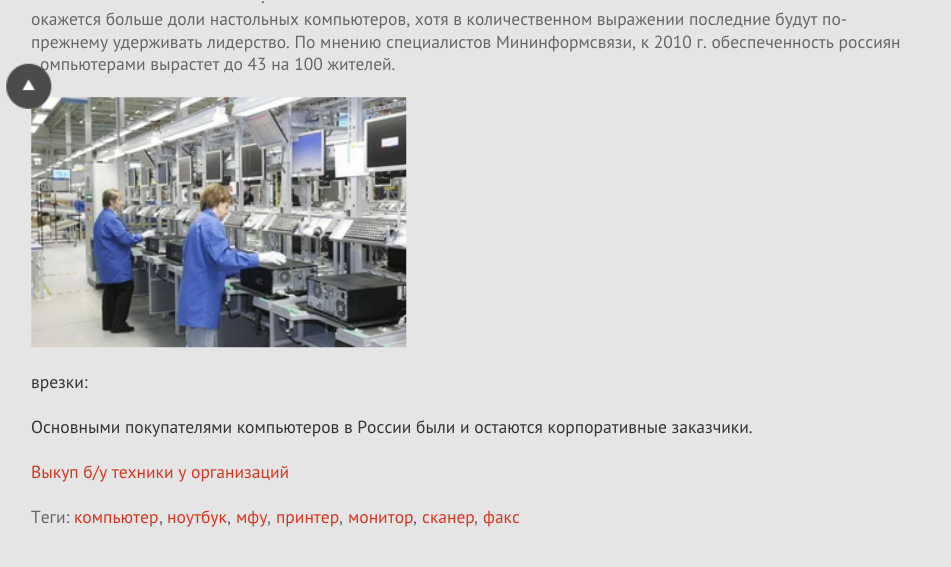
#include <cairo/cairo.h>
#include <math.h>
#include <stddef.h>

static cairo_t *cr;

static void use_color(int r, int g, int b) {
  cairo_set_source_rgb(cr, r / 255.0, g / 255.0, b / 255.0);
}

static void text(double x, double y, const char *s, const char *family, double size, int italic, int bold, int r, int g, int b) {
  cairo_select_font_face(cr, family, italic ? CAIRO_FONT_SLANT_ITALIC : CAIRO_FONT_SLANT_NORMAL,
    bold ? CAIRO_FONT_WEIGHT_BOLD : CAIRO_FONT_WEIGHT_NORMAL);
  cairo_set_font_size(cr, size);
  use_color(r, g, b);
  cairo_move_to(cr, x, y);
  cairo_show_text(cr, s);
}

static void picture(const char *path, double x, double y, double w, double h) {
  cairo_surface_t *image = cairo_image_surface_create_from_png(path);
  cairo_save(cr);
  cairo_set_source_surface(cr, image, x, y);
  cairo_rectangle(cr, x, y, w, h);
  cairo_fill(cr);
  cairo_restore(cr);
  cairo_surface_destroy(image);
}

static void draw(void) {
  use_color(229, 229, 229);
  cairo_paint(cr);
  picture("img_02.png", 31, 97, 376, 251);
  text(261, 3, ".", "PT Sans", 17.5, 0, 0, 103, 103, 103);
  text(31, 25, "окажется больше доли настольных компьютеров, хотя в количественном выражении последние будут по-", "PT Sans", 17.5, 0, 0, 103, 103, 103);
  text(31, 48, "прежнему удерживать лидерство. По мнению специалистов Мининформсвязи, к 2010 г. обеспеченность россиян", "PT Sans", 17.5, 0, 0, 103, 103, 103);
  text(40, 70, "омпьютерами вырастет до 43 на 100 жителей.", "PT Sans", 17.5, 0, 0, 103, 103, 103);
  picture("img_01.png", 6, 63, 46, 46);
  text(31, 388, "врезки:", "PT Sans", 17.5, 0, 0, 53, 53, 53);
  text(31, 433, "Основными покупателями компьютеров в России были и остаются корпоративные заказчики.", "PT Sans", 17.5, 0, 0, 53, 53, 53);
  text(31, 478, "Выкуп б/у техники у организаций", "PT Sans", 17.5, 0, 0, 217, 54, 33);
  text(31, 523, "Теги:", "PT Sans", 17.5, 0, 0, 103, 103, 103);
  text(74, 523, "компьютер", "PT Sans", 17.5, 0, 0, 217, 54, 33);
  text(159, 523, ",", "PT Sans", 17.5, 0, 0, 103, 103, 103);
  text(167, 523, "ноутбук", "PT Sans", 17.5, 0, 0, 217, 54, 33);
  text(227, 523, ",", "PT Sans", 17.5, 0, 0, 103, 103, 103);
  text(236, 523, "мфу", "PT Sans", 17.5, 0, 0, 217, 54, 33);
  text(267, 523, ",", "PT Sans", 17.5, 0, 0, 103, 103, 103);
  text(276, 523, "принтер", "PT Sans", 17.5, 0, 0, 217, 54, 33);
  text(339, 523, ",", "PT Sans", 17.5, 0, 0, 103, 103, 103);
  text(348, 523, "монитор", "PT Sans", 17.5, 0, 0, 217, 54, 33);
  text(413, 523, ",", "PT Sans", 17.5, 0, 0, 103, 103, 103);
  text(422, 523, "сканер", "PT Sans", 17.5, 0, 0, 217, 54, 33);
  text(474, 523, ",", "PT Sans", 17.5, 0, 0, 103, 103, 103);
  text(483, 523, "факс", "PT Sans", 17.5, 0, 0, 217, 54, 33);
}

int main(void) {
  cairo_surface_t *surface = cairo_image_surface_create(CAIRO_FORMAT_RGB24, 951, 567);
  cr = cairo_create(surface);
  cairo_font_options_t *options = cairo_font_options_create();
  cairo_font_options_set_hint_metrics(options, CAIRO_HINT_METRICS_OFF);
  cairo_font_options_set_hint_style(options, CAIRO_HINT_STYLE_NONE);
  cairo_set_font_options(cr, options);
  cairo_set_miter_limit(cr, 4);
  draw();
  cairo_surface_write_to_png(surface, "out.png");
  cairo_font_options_destroy(options);
  cairo_destroy(cr);
  cairo_surface_destroy(surface);
  return 0;
}
